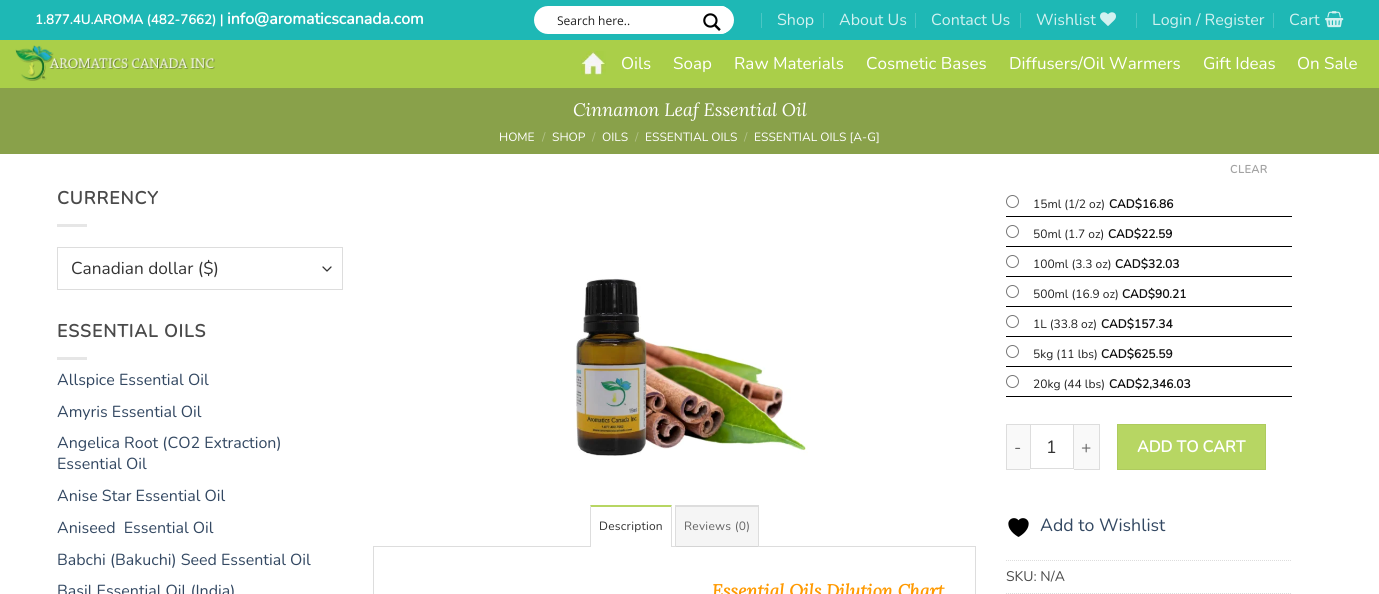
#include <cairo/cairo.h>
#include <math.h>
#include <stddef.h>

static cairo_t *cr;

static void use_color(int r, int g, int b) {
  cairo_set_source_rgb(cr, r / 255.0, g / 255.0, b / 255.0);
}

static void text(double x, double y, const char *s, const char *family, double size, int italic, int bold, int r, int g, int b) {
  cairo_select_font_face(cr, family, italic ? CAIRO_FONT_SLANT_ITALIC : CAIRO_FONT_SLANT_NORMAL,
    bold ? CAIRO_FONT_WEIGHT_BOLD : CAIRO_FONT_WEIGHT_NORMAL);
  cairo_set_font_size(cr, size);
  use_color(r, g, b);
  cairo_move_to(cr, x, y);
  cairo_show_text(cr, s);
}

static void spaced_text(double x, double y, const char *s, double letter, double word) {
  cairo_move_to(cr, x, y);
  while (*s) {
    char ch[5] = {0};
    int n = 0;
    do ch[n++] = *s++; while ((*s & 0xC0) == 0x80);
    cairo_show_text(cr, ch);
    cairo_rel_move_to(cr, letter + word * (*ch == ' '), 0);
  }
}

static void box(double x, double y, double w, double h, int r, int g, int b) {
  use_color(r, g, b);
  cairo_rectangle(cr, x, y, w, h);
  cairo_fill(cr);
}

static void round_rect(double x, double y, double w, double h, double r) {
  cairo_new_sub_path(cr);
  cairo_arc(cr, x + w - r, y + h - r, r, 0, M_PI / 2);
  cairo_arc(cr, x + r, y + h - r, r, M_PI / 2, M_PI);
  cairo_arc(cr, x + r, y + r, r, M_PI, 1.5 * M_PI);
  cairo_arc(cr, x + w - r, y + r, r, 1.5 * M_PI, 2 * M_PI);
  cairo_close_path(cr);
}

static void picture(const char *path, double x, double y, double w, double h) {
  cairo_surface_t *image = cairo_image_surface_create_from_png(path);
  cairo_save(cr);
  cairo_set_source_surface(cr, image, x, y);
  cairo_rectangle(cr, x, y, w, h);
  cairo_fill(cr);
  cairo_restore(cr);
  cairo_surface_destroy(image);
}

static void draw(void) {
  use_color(255, 255, 255);
  cairo_paint(cr);
  box(0, 0, 1379, 40, 30, 184, 181);
  use_color(255, 255, 255);
  round_rect(534, 6, 200, 28, 14);
  cairo_fill(cr);
  cairo_save(cr);
  cairo_rectangle(cr, 698, 6, 28, 32);
  cairo_clip(cr);
  cairo_set_source_rgba(cr, 1, 1, 1, 0.64);
  cairo_new_path(cr);
  cairo_move_to(cr, 697, 7);
  cairo_line_to(cr, 725, 7);
  cairo_line_to(cr, 725, 33);
  cairo_curve_to(cr, 734, 30, 737, 17, 730, 10);
  cairo_curve_to(cr, 728, 8, 725, 7, 723, 6);
  cairo_line_to(cr, 599, 6);
  cairo_line_to(cr, 599, 34);
  cairo_line_to(cr, 697, 34);
  cairo_close_path(cr);
  cairo_fill(cr);
  cairo_restore(cr);
  cairo_save(cr);
  round_rect(534, 6, 200, 28, 14);
  cairo_clip(cr);
  round_rect(534, 6, 200, 28, 14);
  cairo_clip(cr);
  box(698, 6, 28, 28, 255, 255, 255);
  cairo_restore(cr);
  picture("img_01.png", 703, 13, 18, 18);
  box(761, 13, 1, 15, 75, 198, 196);
  box(823, 13, 1, 15, 75, 198, 196);
  box(915, 13, 1, 15, 75, 198, 196);
  box(1020, 13, 1, 15, 75, 198, 196);
  picture("img_02.png", 1100, 12, 16, 14);
  box(1136, 13, 1, 15, 75, 198, 196);
  box(1273, 13, 1, 15, 75, 198, 196);
  picture("img_03.png", 1325, 11, 19, 17);
  box(0, 40, 1379, 48, 170, 207, 73);
  picture("img_04.png", 15, 45, 200, 36);
  picture("img_05.png", 581, 51, 25, 24);
  box(0, 88, 1379, 66, 137, 161, 74);
  box(57, 224, 30, 3, 230, 230, 230);
  cairo_new_path(cr);
  cairo_move_to(cr, 323, 267);
  cairo_line_to(cr, 327, 271);
  cairo_line_to(cr, 331, 267);
  use_color(51, 51, 51);
  cairo_set_line_width(cr, 1.3);
  cairo_set_line_cap(cr, CAIRO_LINE_CAP_ROUND);
  cairo_set_line_join(cr, CAIRO_LINE_JOIN_ROUND);
  cairo_stroke(cr);
  cairo_rectangle(cr, 57.5, 247.5, 285, 42);
  use_color(221, 221, 221);
  cairo_set_line_width(cr, 1);
  cairo_set_line_cap(cr, CAIRO_LINE_CAP_BUTT);
  cairo_set_line_join(cr, CAIRO_LINE_JOIN_MITER);
  cairo_stroke(cr);
  box(57, 357, 30, 3, 230, 230, 230);
  picture("img_06.png", 576, 278, 232, 178);
  cairo_rectangle(cr, 373.5, 546.5, 602, 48);
  use_color(221, 221, 221);
  cairo_stroke(cr);
  box(590, 546, 82, 1, 255, 255, 255);
  use_color(183, 214, 99);
  cairo_new_path(cr);
  cairo_move_to(cr, 590, 505);
  cairo_line_to(cr, 672, 505);
  cairo_line_to(cr, 671, 507);
  cairo_line_to(cr, 591, 507);
  cairo_close_path(cr);
  cairo_fill(cr);
  use_color(221, 221, 221);
  cairo_new_path(cr);
  cairo_move_to(cr, 672, 505);
  cairo_line_to(cr, 672, 547);
  cairo_line_to(cr, 671, 547);
  cairo_line_to(cr, 671, 507);
  cairo_close_path(cr);
  cairo_fill(cr);
  cairo_new_path(cr);
  cairo_move_to(cr, 590, 547);
  cairo_line_to(cr, 590, 505);
  cairo_line_to(cr, 591, 507);
  cairo_line_to(cr, 591, 547);
  cairo_close_path(cr);
  cairo_fill(cr);
  cairo_set_source_rgba(cr, 0, 0, 0, 0.04);
  cairo_rectangle(cr, 676, 507, 82, 40);
  cairo_fill(cr);
  box(675, 505, 84, 2, 221, 221, 221);
  box(758, 505, 1, 42, 221, 221, 221);
  box(675, 505, 1, 42, 221, 221, 221);
  box(1006, 216, 286, 1, 0, 0, 0);
  cairo_arc(cr, 1012.5, 201.5, 6, 0, 2 * M_PI);
  use_color(118, 118, 118);
  cairo_stroke(cr);
  box(1006, 246, 286, 1, 0, 0, 0);
  cairo_arc(cr, 1012.5, 231.5, 6, 0, 2 * M_PI);
  use_color(118, 118, 118);
  cairo_stroke(cr);
  box(1006, 276, 286, 1, 0, 0, 0);
  cairo_arc(cr, 1012.5, 261.5, 6, 0, 2 * M_PI);
  use_color(118, 118, 118);
  cairo_stroke(cr);
  box(1006, 306, 286, 1, 0, 0, 0);
  cairo_arc(cr, 1012.5, 291.5, 6, 0, 2 * M_PI);
  use_color(118, 118, 118);
  cairo_stroke(cr);
  box(1006, 336, 286, 1, 0, 0, 0);
  cairo_arc(cr, 1012.5, 321.5, 6, 0, 2 * M_PI);
  use_color(118, 118, 118);
  cairo_stroke(cr);
  box(1006, 366, 286, 1, 0, 0, 0);
  cairo_arc(cr, 1012.5, 351.5, 6, 0, 2 * M_PI);
  use_color(118, 118, 118);
  cairo_stroke(cr);
  box(1006, 396, 286, 1, 0, 0, 0);
  cairo_arc(cr, 1012.5, 381.5, 6, 0, 2 * M_PI);
  use_color(118, 118, 118);
  cairo_stroke(cr);
  box(1007, 425, 23, 44, 249, 249, 249);
  box(1006, 424, 24, 1, 221, 221, 221);
  box(1006, 469, 24, 1, 221, 221, 221);
  box(1006, 424, 1, 46, 221, 221, 221);
  cairo_rectangle(cr, 1030.5, 424.5, 43, 44);
  cairo_stroke(cr);
  box(1074, 425, 25, 44, 249, 249, 249);
  box(1074, 424, 26, 1, 221, 221, 221);
  box(1099, 424, 1, 46, 221, 221, 221);
  box(1074, 469, 26, 1, 221, 221, 221);
  use_color(183, 214, 99);
  cairo_rectangle(cr, 1117.5, 424.5, 148, 45);
  cairo_fill_preserve(cr);
  use_color(174, 203, 94);
  cairo_stroke(cr);
  picture("img_07.png", 1008, 518, 21, 19);
  cairo_new_path(cr);
  cairo_move_to(cr, 1006, 560.5);
  cairo_line_to(cr, 1292, 560.5);
  use_color(221, 221, 221);
  cairo_set_dash(cr, (double[]){1, 1}, 2, 0);
  cairo_stroke(cr);
  cairo_new_path(cr);
  cairo_move_to(cr, 1006, 593.5);
  cairo_line_to(cr, 1292, 593.5);
  cairo_stroke(cr);
  text(35, 24, "1.877.4U.AROMA (482-7662) |", "Nunito", 13.25, 0, 1, 255, 255, 255);
  text(227, 24, "info@aromaticscanada.com", "Nunito", 16, 0, 1, 255, 255, 255);
  cairo_save(cr);
  round_rect(557, 6, 136, 28, 14);
  cairo_clip(cr);
  text(557, 25, "Search here..", "Open Sans", 12, 0, 0, 34, 34, 34);
  cairo_restore(cr);
  text(777, 25, "Shop", "Nunito ExtraLight", 16, 0, 0, 210, 241, 240);
  text(839, 25, "About Us", "Nunito ExtraLight", 16, 0, 0, 210, 241, 240);
  text(931, 25, "Contact Us", "Nunito ExtraLight", 16, 0, 0, 210, 241, 240);
  text(1036, 25, "Wishlist", "Nunito ExtraLight", 16, 0, 0, 210, 241, 240);
  text(1152, 25, "Login / Register", "Nunito ExtraLight", 16, 0, 0, 210, 241, 240);
  text(1289, 25, "Cart", "Nunito ExtraLight", 16, 0, 0, 210, 241, 240);
  text(621, 69, "Oils", "Nunito ExtraLight", 17, 0, 0, 255, 255, 255);
  text(673, 69, "Soap", "Nunito ExtraLight", 17, 0, 0, 255, 255, 255);
  text(734, 69, "Raw Materials", "Nunito ExtraLight", 17, 0, 0, 255, 255, 255);
  text(866, 69, "Cosmetic Bases", "Nunito ExtraLight", 17, 0, 0, 255, 255, 255);
  text(1009, 69, "Diffusers/Oil Warmers", "Nunito ExtraLight", 17, 0, 0, 255, 255, 255);
  text(1203, 69, "Gift Ideas", "Nunito ExtraLight", 17, 0, 0, 255, 255, 255);
  text(1297, 69, "On Sale", "Nunito ExtraLight", 17, 0, 0, 255, 255, 255);
  text(573, 116, "Cinnamon Leaf Essential Oil", "Lora", 18, 1, 0, 255, 255, 255);
  text(499, 141, "HOME", "Nunito ExtraLight", 12, 0, 0, 255, 255, 255);
  text(542, 141, "/", "Nunito ExtraLight", 12, 0, 0, 178, 194, 137);
  text(552, 141, "SHOP", "Nunito ExtraLight", 12, 0, 0, 255, 255, 255);
  text(592, 141, "/", "Nunito ExtraLight", 12, 0, 0, 178, 194, 137);
  text(602, 141, "OILS", "Nunito ExtraLight", 12, 0, 0, 255, 255, 255);
  text(635, 141, "/", "Nunito ExtraLight", 12, 0, 0, 178, 194, 137);
  text(645, 141, "ESSENTIAL OILS", "Nunito ExtraLight", 12, 0, 0, 255, 255, 255);
  text(744, 141, "/", "Nunito ExtraLight", 12, 0, 0, 178, 194, 137);
  text(754, 141, "ESSENTIAL OILS [A-G]", "Nunito ExtraLight", 12, 0, 0, 255, 255, 255);
  cairo_select_font_face(cr, "Nunito", CAIRO_FONT_SLANT_NORMAL, CAIRO_FONT_WEIGHT_BOLD);
  cairo_set_font_size(cr, 17.75);
  use_color(74, 74, 74);
  spaced_text(57, 204, "CURRENCY", 0.9, 0);
  text(71, 274, "Canadian dollar ($)", "Nunito ExtraLight", 17.25, 0, 0, 51, 51, 51);
  cairo_select_font_face(cr, "Nunito", CAIRO_FONT_SLANT_NORMAL, CAIRO_FONT_WEIGHT_BOLD);
  cairo_set_font_size(cr, 17.75);
  use_color(74, 74, 74);
  spaced_text(57, 337, "ESSENTIAL OILS", 0.9, 0);
  text(57, 385, "Allspice Essential Oil", "Nunito ExtraLight", 16, 0, 0, 51, 72, 98);
  text(57, 417, "Amyris Essential Oil", "Nunito ExtraLight", 16, 0, 0, 51, 72, 98);
  text(57, 448, "Angelica Root (CO2 Extraction)", "Nunito ExtraLight", 16, 0, 0, 51, 72, 98);
  text(57, 469, "Essential Oil", "Nunito ExtraLight", 16, 0, 0, 51, 72, 98);
  text(57, 501, "Anise Star Essential Oil", "Nunito ExtraLight", 16, 0, 0, 51, 72, 98);
  text(57, 533, "Aniseed  Essential Oil", "Nunito ExtraLight", 16, 0, 0, 51, 72, 98);
  text(57, 565, "Babchi (Bakuchi) Seed Essential Oil", "Nunito ExtraLight", 16, 0, 0, 51, 72, 98);
  text(57, 596, "Basil Essential Oil (India)", "Nunito ExtraLight", 16, 0, 0, 51, 72, 98);
  cairo_set_font_size(cr, 12);
  use_color(51, 51, 51);
  spaced_text(599, 530, "Description", 0.25, 0);
  use_color(100, 100, 100);
  spaced_text(684, 530, "Reviews (0)", 0.25, 0);
  text(712, 597, "Essential Oils Dilution Chart", "Lora", 17.75, 1, 1, 255, 153, 0);
  cairo_select_font_face(cr, "Nunito", CAIRO_FONT_SLANT_NORMAL, CAIRO_FONT_WEIGHT_BOLD);
  cairo_set_font_size(cr, 11);
  use_color(163, 163, 163);
  spaced_text(1230, 173, "CLEAR", 0.5, 0);
  text(1033, 208, "15ml (1/2 oz)", "Nunito ExtraLight", 12, 0, 0, 34, 34, 34);
  text(1109, 208, "CAD$16.86", "Nunito", 12, 0, 1, 17, 17, 17);
  text(1033, 238, "50ml (1.7 oz)", "Nunito ExtraLight", 12, 0, 0, 34, 34, 34);
  text(1108, 238, "CAD$22.59", "Nunito", 12, 0, 1, 17, 17, 17);
  text(1033, 268, "100ml (3.3 oz)", "Nunito ExtraLight", 12, 0, 0, 34, 34, 34);
  text(1115, 268, "CAD$32.03", "Nunito", 12, 0, 1, 17, 17, 17);
  text(1033, 298, "500ml (16.9 oz)", "Nunito ExtraLight", 12, 0, 0, 34, 34, 34);
  text(1122, 298, "CAD$90.21", "Nunito", 12, 0, 1, 17, 17, 17);
  text(1033, 328, "1L (33.8 oz)", "Nunito ExtraLight", 12, 0, 0, 34, 34, 34);
  text(1101, 328, "CAD$157.34", "Nunito", 12, 0, 1, 17, 17, 17);
  text(1033, 358, "5kg (11 lbs)", "Nunito ExtraLight", 12, 0, 0, 34, 34, 34);
  text(1101, 358, "CAD$625.59", "Nunito", 12, 0, 1, 17, 17, 17);
  text(1033, 388, "20kg (44 lbs)", "Nunito ExtraLight", 12, 0, 0, 34, 34, 34);
  text(1109, 388, "CAD$2,346.03", "Nunito", 12, 0, 1, 17, 17, 17);
  cairo_select_font_face(cr, "Nunito ExtraLight", CAIRO_FONT_SLANT_NORMAL, CAIRO_FONT_WEIGHT_NORMAL);
  cairo_set_font_size(cr, 17.25);
  use_color(100, 100, 100);
  spaced_text(1014, 453, "-", 1, 0);
  text(1046, 453, "1", "Nunito ExtraLight", 17.75, 0, 0, 51, 51, 51);
  cairo_set_font_size(cr, 17.25);
  use_color(100, 100, 100);
  spaced_text(1081, 453, "+", 1, 0);
  text(1137, 452, "ADD TO CART", "Nunito", 16, 0, 1, 255, 255, 255);
  text(1040, 531, "Add to Wishlist", "Nunito ExtraLight", 17.75, 0, 0, 51, 72, 98);
  text(1006, 581, "SKU: N/A", "Nunito ExtraLight", 14, 0, 0, 74, 74, 74);
}

int main(void) {
  cairo_surface_t *surface = cairo_image_surface_create(CAIRO_FORMAT_RGB24, 1379, 594);
  cr = cairo_create(surface);
  cairo_font_options_t *options = cairo_font_options_create();
  cairo_font_options_set_hint_metrics(options, CAIRO_HINT_METRICS_OFF);
  cairo_font_options_set_hint_style(options, CAIRO_HINT_STYLE_NONE);
  cairo_set_font_options(cr, options);
  cairo_set_miter_limit(cr, 4);
  draw();
  cairo_surface_write_to_png(surface, "out.png");
  cairo_font_options_destroy(options);
  cairo_destroy(cr);
  cairo_surface_destroy(surface);
  return 0;
}
